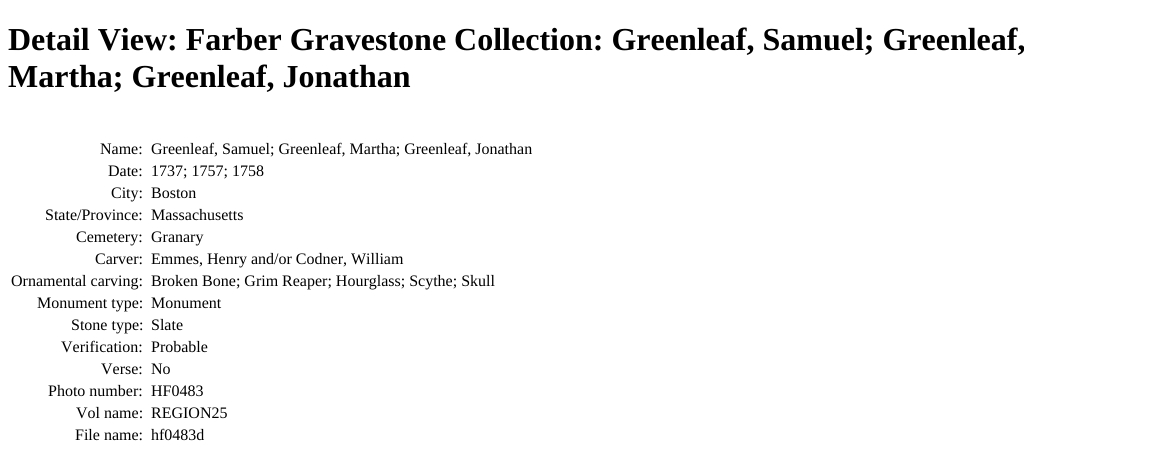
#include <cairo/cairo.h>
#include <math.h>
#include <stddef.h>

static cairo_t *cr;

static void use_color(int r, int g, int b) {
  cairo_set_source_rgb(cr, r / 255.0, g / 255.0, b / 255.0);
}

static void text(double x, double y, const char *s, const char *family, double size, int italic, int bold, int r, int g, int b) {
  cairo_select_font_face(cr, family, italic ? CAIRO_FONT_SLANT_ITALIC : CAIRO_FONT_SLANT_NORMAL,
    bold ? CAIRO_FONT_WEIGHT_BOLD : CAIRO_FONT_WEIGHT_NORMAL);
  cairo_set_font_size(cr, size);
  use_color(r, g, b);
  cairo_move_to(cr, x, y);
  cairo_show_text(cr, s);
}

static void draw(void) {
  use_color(255, 255, 255);
  cairo_paint(cr);
  text(8, 50, "Detail View: Farber Gravestone Collection: Greenleaf, Samuel; Greenleaf,", "Liberation Serif", 32, 0, 1, 0, 0, 0);
  text(8, 87, "Martha; Greenleaf, Jonathan", "Liberation Serif", 32, 0, 1, 0, 0, 0);
  text(100, 154, "Name:", "Liberation Serif", 16, 0, 0, 0, 0, 0);
  text(151, 154, "Greenleaf, Samuel; Greenleaf, Martha; Greenleaf, Jonathan", "Liberation Serif", 16, 0, 0, 0, 0, 0);
  text(108, 176, "Date:", "Liberation Serif", 16, 0, 0, 0, 0, 0);
  text(151, 176, "1737; 1757; 1758", "Liberation Serif", 16, 0, 0, 0, 0, 0);
  text(111, 198, "City:", "Liberation Serif", 16, 0, 0, 0, 0, 0);
  text(151, 198, "Boston", "Liberation Serif", 16, 0, 0, 0, 0, 0);
  text(45, 220, "State/Province:", "Liberation Serif", 16, 0, 0, 0, 0, 0);
  text(151, 220, "Massachusetts", "Liberation Serif", 16, 0, 0, 0, 0, 0);
  text(76, 242, "Cemetery:", "Liberation Serif", 16, 0, 0, 0, 0, 0);
  text(151, 242, "Granary", "Liberation Serif", 16, 0, 0, 0, 0, 0);
  text(95, 264, "Carver:", "Liberation Serif", 16, 0, 0, 0, 0, 0);
  text(151, 264, "Emmes, Henry and/or Codner, William", "Liberation Serif", 16, 0, 0, 0, 0, 0);
  text(11, 286, "Ornamental carving:", "Liberation Serif", 16, 0, 0, 0, 0, 0);
  text(151, 286, "Broken Bone; Grim Reaper; Hourglass; Scythe; Skull", "Liberation Serif", 16, 0, 0, 0, 0, 0);
  text(37, 308, "Monument type:", "Liberation Serif", 16, 0, 0, 0, 0, 0);
  text(151, 308, "Monument", "Liberation Serif", 16, 0, 0, 0, 0, 0);
  text(71, 330, "Stone type:", "Liberation Serif", 16, 0, 0, 0, 0, 0);
  text(151, 330, "Slate", "Liberation Serif", 16, 0, 0, 0, 0, 0);
  text(61, 352, "Verification:", "Liberation Serif", 16, 0, 0, 0, 0, 0);
  text(151, 352, "Probable", "Liberation Serif", 16, 0, 0, 0, 0, 0);
  text(101, 374, "Verse:", "Liberation Serif", 16, 0, 0, 0, 0, 0);
  text(151, 374, "No", "Liberation Serif", 16, 0, 0, 0, 0, 0);
  text(48, 396, "Photo number:", "Liberation Serif", 16, 0, 0, 0, 0, 0);
  text(151, 396, "HF0483", "Liberation Serif", 16, 0, 0, 0, 0, 0);
  text(76, 418, "Vol name:", "Liberation Serif", 16, 0, 0, 0, 0, 0);
  text(151, 418, "REGION25", "Liberation Serif", 16, 0, 0, 0, 0, 0);
  text(75, 440, "File name:", "Liberation Serif", 16, 0, 0, 0, 0, 0);
  text(151, 440, "hf0483d", "Liberation Serif", 16, 0, 0, 0, 0, 0);
}

int main(void) {
  cairo_surface_t *surface = cairo_image_surface_create(CAIRO_FORMAT_RGB24, 1150, 474);
  cr = cairo_create(surface);
  cairo_font_options_t *options = cairo_font_options_create();
  cairo_font_options_set_hint_metrics(options, CAIRO_HINT_METRICS_OFF);
  cairo_font_options_set_hint_style(options, CAIRO_HINT_STYLE_NONE);
  cairo_set_font_options(cr, options);
  cairo_set_miter_limit(cr, 4);
  draw();
  cairo_surface_write_to_png(surface, "out.png");
  cairo_font_options_destroy(options);
  cairo_destroy(cr);
  cairo_surface_destroy(surface);
  return 0;
}
